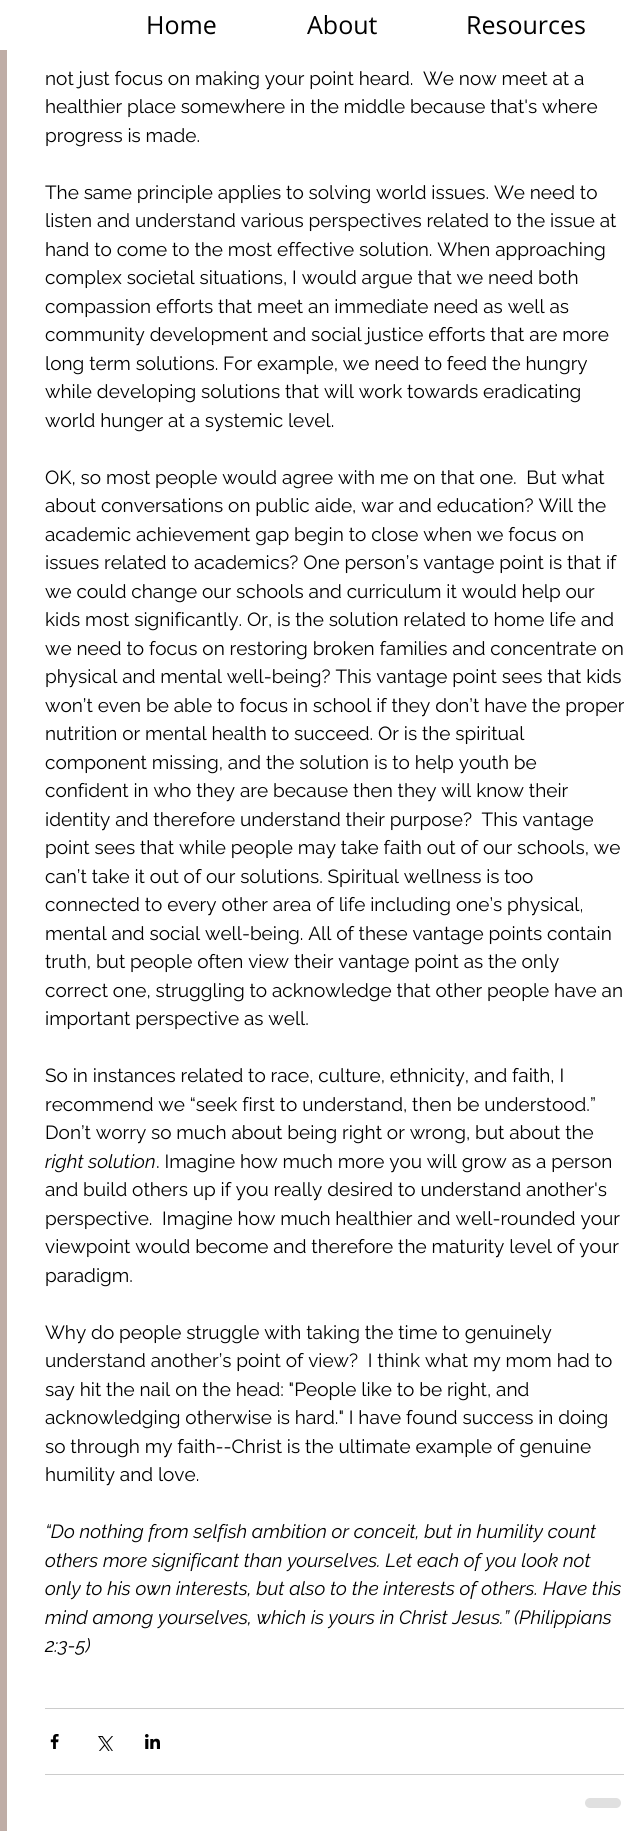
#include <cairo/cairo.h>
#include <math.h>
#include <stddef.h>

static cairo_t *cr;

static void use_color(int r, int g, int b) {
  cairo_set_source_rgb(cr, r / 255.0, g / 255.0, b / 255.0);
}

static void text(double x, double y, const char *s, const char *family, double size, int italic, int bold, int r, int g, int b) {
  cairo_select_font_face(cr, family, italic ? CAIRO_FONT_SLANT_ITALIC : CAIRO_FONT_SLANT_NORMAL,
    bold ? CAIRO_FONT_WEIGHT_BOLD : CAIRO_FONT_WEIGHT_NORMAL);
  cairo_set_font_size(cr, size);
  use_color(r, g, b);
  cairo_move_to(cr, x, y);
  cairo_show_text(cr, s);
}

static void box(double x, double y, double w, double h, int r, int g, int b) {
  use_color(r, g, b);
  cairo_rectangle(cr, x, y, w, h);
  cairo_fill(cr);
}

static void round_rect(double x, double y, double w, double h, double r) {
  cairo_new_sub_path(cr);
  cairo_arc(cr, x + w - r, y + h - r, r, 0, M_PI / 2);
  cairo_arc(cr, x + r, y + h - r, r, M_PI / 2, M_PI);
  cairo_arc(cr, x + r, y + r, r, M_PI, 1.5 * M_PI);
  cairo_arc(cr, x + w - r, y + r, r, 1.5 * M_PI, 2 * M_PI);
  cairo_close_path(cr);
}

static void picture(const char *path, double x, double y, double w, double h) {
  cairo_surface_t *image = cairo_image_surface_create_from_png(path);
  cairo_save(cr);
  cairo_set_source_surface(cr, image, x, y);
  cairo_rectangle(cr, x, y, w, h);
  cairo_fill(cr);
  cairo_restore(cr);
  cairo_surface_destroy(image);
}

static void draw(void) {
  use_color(191, 173, 166);
  cairo_paint(cr);
  box(0, 0, 624, 50, 255, 255, 255);
  box(7, 50, 617, 1781, 255, 255, 255);
  box(45, 1708, 579, 1, 204, 204, 204);
  picture("img_01.png", 50, 1734, 9, 15);
  picture("img_02.png", 98, 1736, 15, 15);
  picture("img_03.png", 145, 1734, 15, 15);
  box(45, 1774, 579, 1, 204, 204, 204);
  use_color(224, 224, 224);
  round_rect(585, 1798, 36, 10, 5);
  cairo_fill(cr);
  text(146, 34, "Home", "Open Sans", 25, 0, 0, 0, 0, 0);
  text(307, 34, "About", "Open Sans", 25, 0, 0, 0, 0, 0);
  text(466, 34, "Resources", "Open Sans", 25, 0, 0, 0, 0, 0);
  text(45, 85, "not just focus on making your point heard.  We now meet at a", "Raleway", 19, 0, 0, 0, 0, 0);
  text(45, 113, "healthier place somewhere in the middle because that's where", "Raleway", 19, 0, 0, 0, 0, 0);
  text(45, 142, "progress is made.", "Raleway", 19, 0, 0, 0, 0, 0);
  text(45, 199, "The same principle applies to solving world issues. We need to", "Raleway", 19, 0, 0, 0, 0, 0);
  text(45, 227, "listen and understand various perspectives related to the issue at", "Raleway", 19, 0, 0, 0, 0, 0);
  text(45, 256, "hand to come to the most effective solution. When approaching", "Raleway", 19, 0, 0, 0, 0, 0);
  text(45, 284, "complex societal situations, I would argue that we need both", "Raleway", 19, 0, 0, 0, 0, 0);
  text(45, 313, "compassion efforts that meet an immediate need as well as", "Raleway", 19, 0, 0, 0, 0, 0);
  text(45, 341, "community development and social justice efforts that are more", "Raleway", 19, 0, 0, 0, 0, 0);
  text(45, 370, "long term solutions. For example, we need to feed the hungry", "Raleway", 19, 0, 0, 0, 0, 0);
  text(45, 398, "while developing solutions that will work towards eradicating", "Raleway", 19, 0, 0, 0, 0, 0);
  text(45, 427, "world hunger at a systemic level.", "Raleway", 19, 0, 0, 0, 0, 0);
  text(45, 484, "OK, so most people would agree with me on that one.  But what", "Raleway", 19, 0, 0, 0, 0, 0);
  text(45, 512, "about conversations on public aide, war and education? Will the", "Raleway", 19, 0, 0, 0, 0, 0);
  text(45, 541, "academic achievement gap begin to close when we focus on", "Raleway", 19, 0, 0, 0, 0, 0);
  text(45, 569, "issues related to academics? One person’s vantage point is that if", "Raleway", 19, 0, 0, 0, 0, 0);
  text(45, 598, "we could change our schools and curriculum it would help our", "Raleway", 19, 0, 0, 0, 0, 0);
  text(45, 626, "kids most significantly. Or, is the solution related to home life and", "Raleway", 19, 0, 0, 0, 0, 0);
  text(45, 655, "we need to focus on restoring broken families and concentrate on", "Raleway", 19, 0, 0, 0, 0, 0);
  text(45, 683, "physical and mental well-being? This vantage point sees that kids", "Raleway", 19, 0, 0, 0, 0, 0);
  text(45, 712, "won’t even be able to focus in school if they don’t have the proper", "Raleway", 19, 0, 0, 0, 0, 0);
  text(45, 740, "nutrition or mental health to succeed. Or is the spiritual", "Raleway", 19, 0, 0, 0, 0, 0);
  text(45, 769, "component missing, and the solution is to help youth be", "Raleway", 19, 0, 0, 0, 0, 0);
  text(45, 797, "confident in who they are because then they will know their", "Raleway", 19, 0, 0, 0, 0, 0);
  text(45, 826, "identity and therefore understand their purpose?  This vantage", "Raleway", 19, 0, 0, 0, 0, 0);
  text(45, 854, "point sees that while people may take faith out of our schools, we", "Raleway", 19, 0, 0, 0, 0, 0);
  text(45, 883, "can’t take it out of our solutions. Spiritual wellness is too", "Raleway", 19, 0, 0, 0, 0, 0);
  text(45, 911, "connected to every other area of life including one’s physical,", "Raleway", 19, 0, 0, 0, 0, 0);
  text(45, 940, "mental and social well-being. All of these vantage points contain", "Raleway", 19, 0, 0, 0, 0, 0);
  text(45, 968, "truth, but people often view their vantage point as the only", "Raleway", 19, 0, 0, 0, 0, 0);
  text(45, 997, "correct one, struggling to acknowledge that other people have an", "Raleway", 19, 0, 0, 0, 0, 0);
  text(45, 1025, "important perspective as well.", "Raleway", 19, 0, 0, 0, 0, 0);
  text(45, 1082, "So in instances related to race, culture, ethnicity, and faith, I", "Raleway", 19, 0, 0, 0, 0, 0);
  text(45, 1111, "recommend we “seek first to understand, then be understood.”", "Raleway", 19, 0, 0, 0, 0, 0);
  text(45, 1139, "Don’t worry so much about being right or wrong, but about the", "Raleway", 19, 0, 0, 0, 0, 0);
  text(45, 1168, "right solution", "Raleway", 19, 1, 0, 0, 0, 0);
  text(156, 1168, ". Imagine how much more you will grow as a person", "Raleway", 19, 0, 0, 0, 0, 0);
  text(45, 1196, "and build others up if you really desired to understand another's", "Raleway", 19, 0, 0, 0, 0, 0);
  text(45, 1225, "perspective.  Imagine how much healthier and well-rounded your", "Raleway", 19, 0, 0, 0, 0, 0);
  text(45, 1253, "viewpoint would become and therefore the maturity level of your", "Raleway", 19, 0, 0, 0, 0, 0);
  text(45, 1282, "paradigm.", "Raleway", 19, 0, 0, 0, 0, 0);
  text(45, 1339, "Why do people struggle with taking the time to genuinely", "Raleway", 19, 0, 0, 0, 0, 0);
  text(45, 1367, "understand another’s point of view?  I think what my mom had to", "Raleway", 19, 0, 0, 0, 0, 0);
  text(45, 1396, "say hit the nail on the head: \"People like to be right, and", "Raleway", 19, 0, 0, 0, 0, 0);
  text(45, 1424, "acknowledging otherwise is hard.\" I have found success in doing", "Raleway", 19, 0, 0, 0, 0, 0);
  text(45, 1453, "so through my faith--Christ is the ultimate example of genuine", "Raleway", 19, 0, 0, 0, 0, 0);
  text(45, 1481, "humility and love.", "Raleway", 19, 0, 0, 0, 0, 0);
  text(45, 1538, "“Do nothing from selfish ambition or conceit, but in humility count", "Raleway", 19, 1, 0, 0, 0, 0);
  text(45, 1567, "others more significant than yourselves. Let each of you look not", "Raleway", 19, 1, 0, 0, 0, 0);
  text(45, 1595, "only to his own interests, but also to the interests of others. Have this", "Raleway", 19, 1, 0, 0, 0, 0);
  text(45, 1624, "mind among yourselves, which is yours in Christ Jesus.” (Philippians", "Raleway", 19, 1, 0, 0, 0, 0);
  text(45, 1652, "2:3-5)", "Raleway", 19, 1, 0, 0, 0, 0);
}

int main(void) {
  cairo_surface_t *surface = cairo_image_surface_create(CAIRO_FORMAT_RGB24, 624, 1831);
  cr = cairo_create(surface);
  cairo_font_options_t *options = cairo_font_options_create();
  cairo_font_options_set_hint_metrics(options, CAIRO_HINT_METRICS_OFF);
  cairo_font_options_set_hint_style(options, CAIRO_HINT_STYLE_NONE);
  cairo_set_font_options(cr, options);
  cairo_set_miter_limit(cr, 4);
  draw();
  cairo_surface_write_to_png(surface, "out.png");
  cairo_font_options_destroy(options);
  cairo_destroy(cr);
  cairo_surface_destroy(surface);
  return 0;
}
